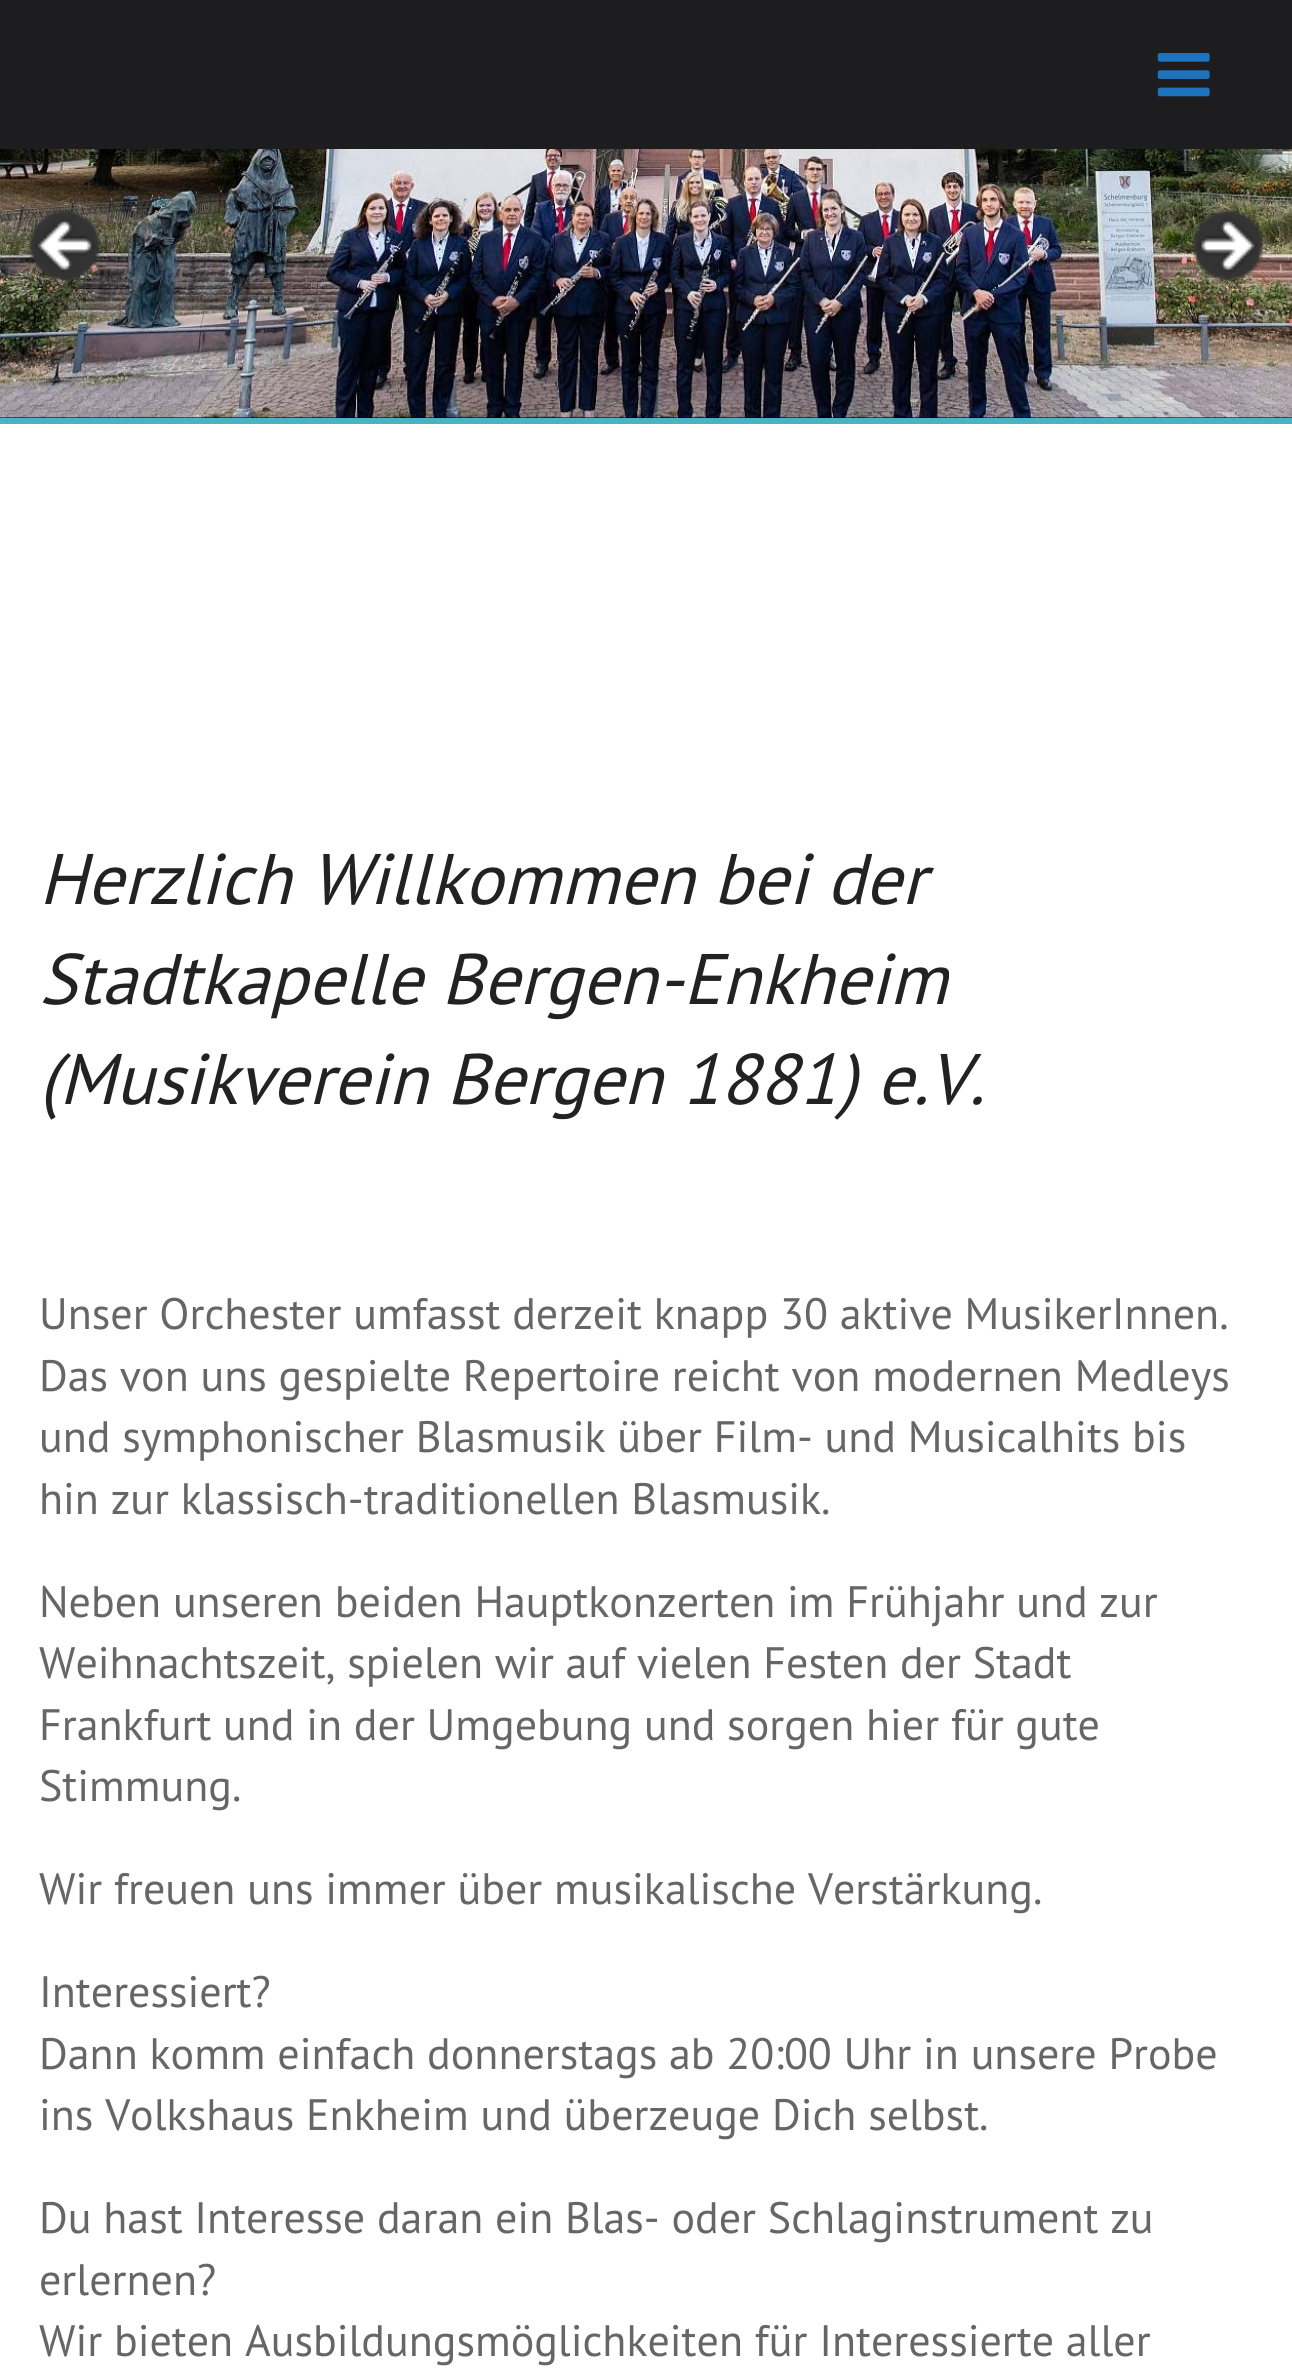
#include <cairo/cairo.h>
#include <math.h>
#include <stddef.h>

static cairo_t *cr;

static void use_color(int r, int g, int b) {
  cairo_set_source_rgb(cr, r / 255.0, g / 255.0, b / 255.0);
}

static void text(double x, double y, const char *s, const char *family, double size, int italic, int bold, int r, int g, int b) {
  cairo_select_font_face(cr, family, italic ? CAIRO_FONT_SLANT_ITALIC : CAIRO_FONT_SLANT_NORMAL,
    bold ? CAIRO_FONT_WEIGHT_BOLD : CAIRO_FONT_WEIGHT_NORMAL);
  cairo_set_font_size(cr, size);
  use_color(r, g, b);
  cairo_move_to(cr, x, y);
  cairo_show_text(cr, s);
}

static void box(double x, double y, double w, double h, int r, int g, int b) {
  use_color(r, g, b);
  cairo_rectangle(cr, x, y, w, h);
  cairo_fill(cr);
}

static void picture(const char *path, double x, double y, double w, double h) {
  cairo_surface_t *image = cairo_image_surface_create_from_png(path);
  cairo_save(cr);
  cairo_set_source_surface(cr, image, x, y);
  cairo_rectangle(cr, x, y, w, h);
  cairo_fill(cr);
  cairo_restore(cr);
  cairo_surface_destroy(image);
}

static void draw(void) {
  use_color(255, 255, 255);
  cairo_paint(cr);
  box(0, 0, 1292, 149, 29, 29, 32);
  picture("img_01.png", 1157, 53, 53, 44);
  box(0, 417, 1292, 1, 0, 0, 0);
  picture("img_02.png", 0, 149, 1292, 269);
  picture("img_03.png", 29, 210, 71, 71);
  picture("img_04.png", 1192, 210, 72, 71);
  box(0, 418, 1292, 6, 76, 176, 198);
  text(39, 904, "Herzlich Willkommen bei der", "PT Sans", 71.5, 1, 0, 34, 34, 34);
  text(39, 1004, "Stadtkapelle Bergen-Enkheim", "PT Sans", 71.5, 1, 0, 34, 34, 34);
  text(39, 1104, "(Musikverein Bergen 1881) e.V.", "PT Sans", 71.5, 1, 0, 34, 34, 34);
  text(39, 1329, "Unser Orchester umfasst derzeit knapp 30 aktive MusikerInnen.", "PT Sans", 44, 0, 0, 102, 102, 102);
  text(39, 1391, "Das von uns gespielte Repertoire reicht von modernen Medleys", "PT Sans", 44, 0, 0, 102, 102, 102);
  text(39, 1452, "und symphonischer Blasmusik über Film- und Musicalhits bis", "PT Sans", 44, 0, 0, 102, 102, 102);
  text(39, 1514, "hin zur klassisch-traditionellen Blasmusik.", "PT Sans", 44, 0, 0, 102, 102, 102);
  text(39, 1617, "Neben unseren beiden Hauptkonzerten im Frühjahr und zur", "PT Sans", 44, 0, 0, 102, 102, 102);
  text(39, 1678, "Weihnachtszeit, spielen wir auf vielen Festen der Stadt", "PT Sans", 44, 0, 0, 102, 102, 102);
  text(39, 1740, "Frankfurt und in der Umgebung und sorgen hier für gute", "PT Sans", 44, 0, 0, 102, 102, 102);
  text(39, 1801, "Stimmung.", "PT Sans", 44, 0, 0, 102, 102, 102);
  text(39, 1904, "Wir freuen uns immer über musikalische Verstärkung.", "PT Sans", 44, 0, 0, 102, 102, 102);
  text(39, 2007, "Interessiert?", "PT Sans", 44, 0, 0, 102, 102, 102);
  text(39, 2069, "Dann komm einfach donnerstags ab 20:00 Uhr in unsere Probe", "PT Sans", 44, 0, 0, 102, 102, 102);
  text(39, 2130, "ins Volkshaus Enkheim und überzeuge Dich selbst.", "PT Sans", 44, 0, 0, 102, 102, 102);
  text(39, 2233, "Du hast Interesse daran ein Blas- oder Schlaginstrument zu", "PT Sans", 44, 0, 0, 102, 102, 102);
  text(39, 2295, "erlernen?", "PT Sans", 44, 0, 0, 102, 102, 102);
  text(39, 2356, "Wir bieten Ausbildungsmöglichkeiten für Interessierte aller", "PT Sans", 44, 0, 0, 102, 102, 102);
}

int main(void) {
  cairo_surface_t *surface = cairo_image_surface_create(CAIRO_FORMAT_RGB24, 1292, 2371);
  cr = cairo_create(surface);
  cairo_font_options_t *options = cairo_font_options_create();
  cairo_font_options_set_hint_metrics(options, CAIRO_HINT_METRICS_OFF);
  cairo_font_options_set_hint_style(options, CAIRO_HINT_STYLE_NONE);
  cairo_set_font_options(cr, options);
  cairo_set_miter_limit(cr, 4);
  draw();
  cairo_surface_write_to_png(surface, "out.png");
  cairo_font_options_destroy(options);
  cairo_destroy(cr);
  cairo_surface_destroy(surface);
  return 0;
}
